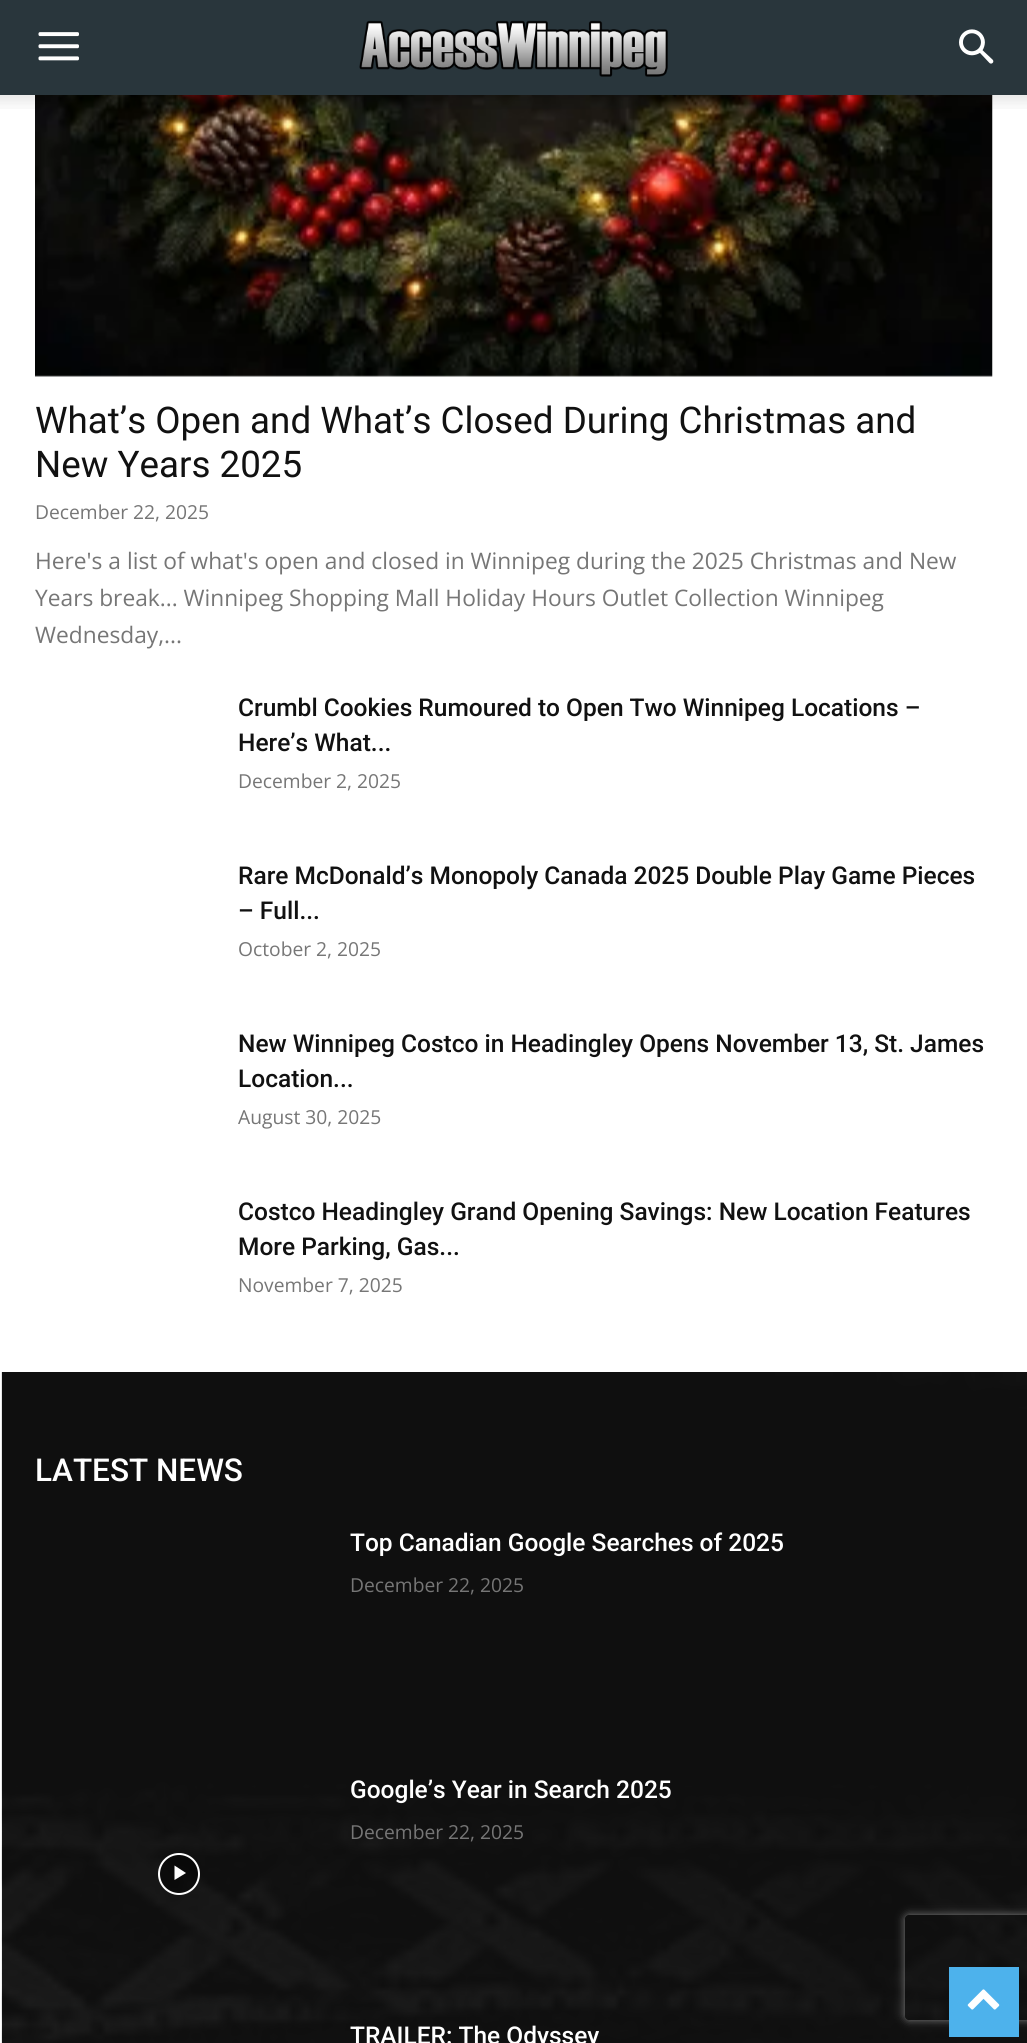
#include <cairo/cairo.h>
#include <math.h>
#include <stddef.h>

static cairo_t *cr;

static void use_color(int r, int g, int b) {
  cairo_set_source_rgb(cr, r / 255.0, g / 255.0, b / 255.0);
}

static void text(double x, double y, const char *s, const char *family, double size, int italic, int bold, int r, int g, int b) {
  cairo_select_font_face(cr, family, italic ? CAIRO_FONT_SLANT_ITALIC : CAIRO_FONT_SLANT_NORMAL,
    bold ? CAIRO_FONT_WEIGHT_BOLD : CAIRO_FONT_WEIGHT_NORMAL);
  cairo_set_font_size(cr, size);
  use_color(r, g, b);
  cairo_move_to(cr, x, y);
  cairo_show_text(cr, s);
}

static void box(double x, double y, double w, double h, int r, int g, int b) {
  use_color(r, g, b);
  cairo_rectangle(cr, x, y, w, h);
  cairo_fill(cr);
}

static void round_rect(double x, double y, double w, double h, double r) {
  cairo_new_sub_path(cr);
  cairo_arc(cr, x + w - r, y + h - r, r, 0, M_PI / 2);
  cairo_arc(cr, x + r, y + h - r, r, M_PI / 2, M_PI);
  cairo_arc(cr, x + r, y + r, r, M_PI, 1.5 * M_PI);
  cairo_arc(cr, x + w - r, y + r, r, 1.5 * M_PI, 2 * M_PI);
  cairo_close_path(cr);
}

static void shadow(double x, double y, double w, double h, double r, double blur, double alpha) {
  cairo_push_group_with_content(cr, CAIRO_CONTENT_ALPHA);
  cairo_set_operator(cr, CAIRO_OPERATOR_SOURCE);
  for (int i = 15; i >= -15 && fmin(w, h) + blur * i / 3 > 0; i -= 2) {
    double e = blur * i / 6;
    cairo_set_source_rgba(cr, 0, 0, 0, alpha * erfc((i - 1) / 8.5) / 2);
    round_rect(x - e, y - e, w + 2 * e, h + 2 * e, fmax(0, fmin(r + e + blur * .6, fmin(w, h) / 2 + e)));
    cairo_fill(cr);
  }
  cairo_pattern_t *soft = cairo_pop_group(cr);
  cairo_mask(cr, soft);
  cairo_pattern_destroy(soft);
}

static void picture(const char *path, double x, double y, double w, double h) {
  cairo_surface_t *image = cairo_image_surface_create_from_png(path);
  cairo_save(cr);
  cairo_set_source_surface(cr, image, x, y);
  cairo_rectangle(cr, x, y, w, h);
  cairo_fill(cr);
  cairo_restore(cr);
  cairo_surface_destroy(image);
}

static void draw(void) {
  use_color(255, 255, 255);
  cairo_paint(cr);
  box(0, 0, 1027, 95, 41, 54, 60);
  picture("img_01.png", 38, 32, 41, 29);
  picture("img_02.png", 359, 20, 309, 57);
  picture("img_03.png", 959, 29, 35, 35);
  picture("img_05.png", 35, 95, 958, 282);
  picture("img_04.png", 0, 95, 1027, 14);
  box(2, 1372, 1025, 671, 17, 17, 17);
  picture("img_06.png", 1, 1372, 1026, 671);
  cairo_set_source_rgba(cr, 0, 0, 0, 0.48);
  cairo_arc(cr, 179, 1874, 20, 0, 2 * M_PI);
  cairo_fill_preserve(cr);
  use_color(255, 255, 255);
  cairo_stroke(cr);
  cairo_new_path(cr);
  cairo_move_to(cr, 174.5, 1865.5);
  cairo_line_to(cr, 174.5, 1880);
  cairo_line_to(cr, 186, 1873);
  cairo_close_path(cr);
  cairo_fill(cr);
  cairo_save(cr);
  cairo_set_fill_rule(cr, CAIRO_FILL_RULE_EVEN_ODD);
  cairo_new_path(cr);
  cairo_move_to(cr, 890, 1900);
  cairo_line_to(cr, 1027, 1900);
  cairo_line_to(cr, 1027, 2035);
  cairo_line_to(cr, 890, 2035);
  cairo_close_path(cr);
  cairo_move_to(cr, 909, 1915);
  cairo_line_to(cr, 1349, 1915);
  cairo_curve_to(cr, 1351, 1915, 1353, 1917, 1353, 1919);
  cairo_line_to(cr, 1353, 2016);
  cairo_curve_to(cr, 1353, 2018, 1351, 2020, 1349, 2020);
  cairo_line_to(cr, 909, 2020);
  cairo_curve_to(cr, 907, 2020, 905, 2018, 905, 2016);
  cairo_line_to(cr, 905, 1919);
  cairo_curve_to(cr, 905, 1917, 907, 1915, 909, 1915);
  cairo_close_path(cr);
  cairo_clip(cr);
  use_color(128, 128, 128);
  shadow(905, 1915, 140, 105, 4, 4.5, 1);
  cairo_restore(cr);
  box(949, 1967, 70, 70, 77, 178, 236);
  picture("img_07.png", 967, 1989, 33, 21);
  text(35, 433, "What’s Open and What’s Closed During Christmas and", "Roboto", 36.75, 0, 0, 17, 17, 17);
  text(35, 477, "New Years 2025", "Roboto", 36.75, 0, 0, 17, 17, 17);
  text(35, 519, "December 22, 2025", "Open Sans", 19.25, 0, 0, 118, 118, 118);
  text(35, 569, "Here's a list of what's open and closed in Winnipeg during the 2025 Christmas and New", "Open Sans", 22.75, 0, 0, 118, 118, 118);
  text(35, 606, "Years break... Winnipeg Shopping Mall Holiday Hours Outlet Collection Winnipeg", "Open Sans", 22.75, 0, 0, 118, 118, 118);
  text(35, 643, "Wednesday,...", "Open Sans", 22.75, 0, 0, 118, 118, 118);
  text(238, 716, "Crumbl Cookies Rumoured to Open Two Winnipeg Locations –", "Roboto Medium", 24.5, 0, 0, 17, 17, 17);
  text(238, 751, "Here’s What...", "Roboto Medium", 24.5, 0, 0, 17, 17, 17);
  text(238, 788, "December 2, 2025", "Open Sans", 19.25, 0, 0, 118, 118, 118);
  text(238, 884, "Rare McDonald’s Monopoly Canada 2025 Double Play Game Pieces", "Roboto Medium", 24.5, 0, 0, 17, 17, 17);
  text(238, 919, "– Full...", "Roboto Medium", 24.5, 0, 0, 17, 17, 17);
  text(238, 956, "October 2, 2025", "Open Sans", 19.25, 0, 0, 118, 118, 118);
  text(238, 1052, "New Winnipeg Costco in Headingley Opens November 13, St. James", "Roboto Medium", 24.5, 0, 0, 17, 17, 17);
  text(238, 1087, "Location...", "Roboto Medium", 24.5, 0, 0, 17, 17, 17);
  text(238, 1124, "August 30, 2025", "Open Sans", 19.25, 0, 0, 118, 118, 118);
  text(238, 1220, "Costco Headingley Grand Opening Savings: New Location Features", "Roboto Medium", 24.5, 0, 0, 17, 17, 17);
  text(238, 1255, "More Parking, Gas...", "Roboto Medium", 24.5, 0, 0, 17, 17, 17);
  text(238, 1292, "November 7, 2025", "Open Sans", 19.25, 0, 0, 118, 118, 118);
  text(35, 1481, "LATEST NEWS", "Roboto Medium", 31.5, 0, 0, 255, 255, 255);
  text(350, 1551, "Top Canadian Google Searches of 2025", "Roboto Medium", 24.5, 0, 0, 255, 255, 255);
  text(350, 1592, "December 22, 2025", "Open Sans", 19.25, 0, 0, 118, 118, 118);
  text(350, 1798, "Google’s Year in Search 2025", "Roboto Medium", 24.5, 0, 0, 255, 255, 255);
  text(350, 1839, "December 22, 2025", "Open Sans", 19.25, 0, 0, 118, 118, 118);
  text(350, 2044, "TRAILER: The Odyssey", "Roboto Medium", 24.5, 0, 0, 255, 255, 255);
}

int main(void) {
  cairo_surface_t *surface = cairo_image_surface_create(CAIRO_FORMAT_RGB24, 1027, 2043);
  cr = cairo_create(surface);
  cairo_font_options_t *options = cairo_font_options_create();
  cairo_font_options_set_hint_metrics(options, CAIRO_HINT_METRICS_OFF);
  cairo_font_options_set_hint_style(options, CAIRO_HINT_STYLE_NONE);
  cairo_set_font_options(cr, options);
  cairo_set_miter_limit(cr, 4);
  draw();
  cairo_surface_write_to_png(surface, "out.png");
  cairo_font_options_destroy(options);
  cairo_destroy(cr);
  cairo_surface_destroy(surface);
  return 0;
}
